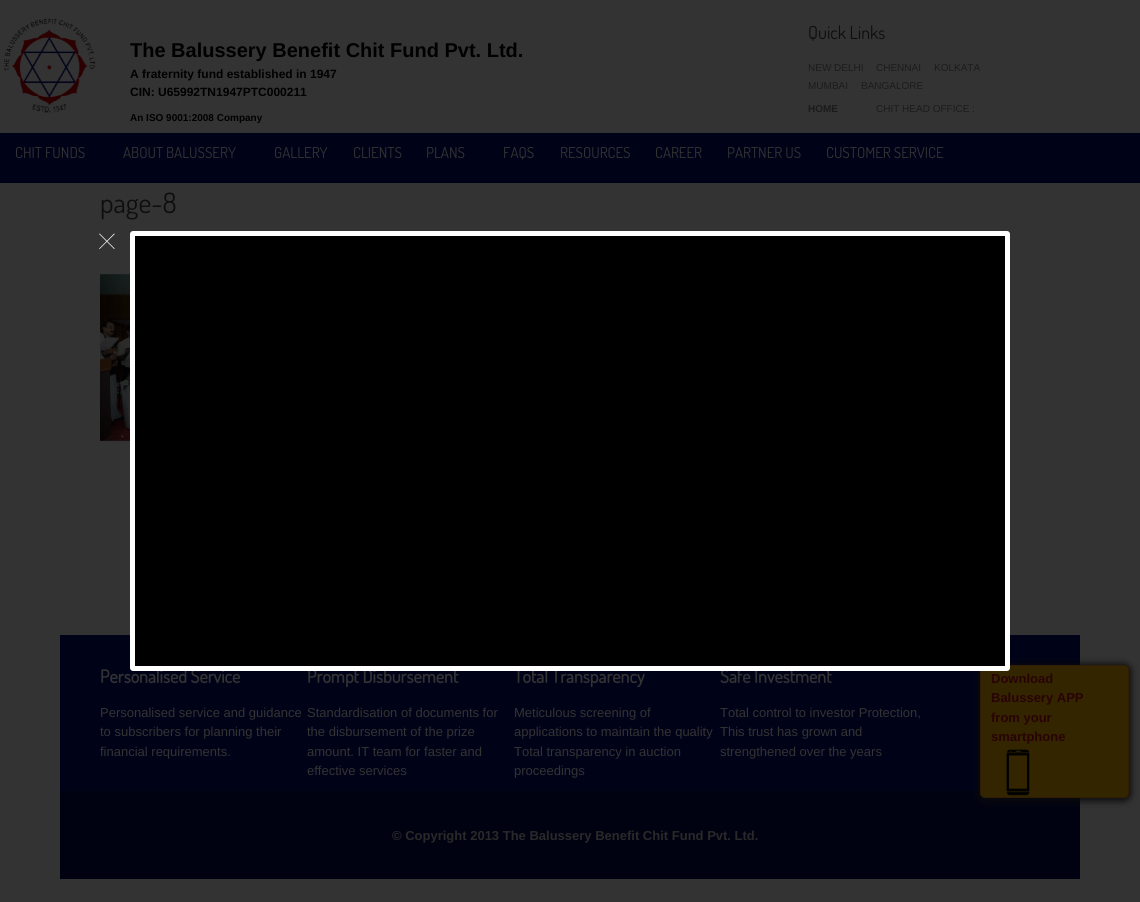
#include <cairo/cairo.h>
#include <math.h>
#include <stddef.h>

static cairo_t *cr;

static void use_color(int r, int g, int b) {
  cairo_set_source_rgb(cr, r / 255.0, g / 255.0, b / 255.0);
}

static void text(double x, double y, const char *s, const char *family, double size, int italic, int bold, int r, int g, int b) {
  cairo_select_font_face(cr, family, italic ? CAIRO_FONT_SLANT_ITALIC : CAIRO_FONT_SLANT_NORMAL,
    bold ? CAIRO_FONT_WEIGHT_BOLD : CAIRO_FONT_WEIGHT_NORMAL);
  cairo_set_font_size(cr, size);
  use_color(r, g, b);
  cairo_move_to(cr, x, y);
  cairo_show_text(cr, s);
}

static void box(double x, double y, double w, double h, int r, int g, int b) {
  use_color(r, g, b);
  cairo_rectangle(cr, x, y, w, h);
  cairo_fill(cr);
}

static void round_rect(double x, double y, double w, double h, double r) {
  cairo_new_sub_path(cr);
  cairo_arc(cr, x + w - r, y + h - r, r, 0, M_PI / 2);
  cairo_arc(cr, x + r, y + h - r, r, M_PI / 2, M_PI);
  cairo_arc(cr, x + r, y + r, r, M_PI, 1.5 * M_PI);
  cairo_arc(cr, x + w - r, y + r, r, 1.5 * M_PI, 2 * M_PI);
  cairo_close_path(cr);
}

static void shadow(double x, double y, double w, double h, double r, double blur, double alpha) {
  cairo_push_group_with_content(cr, CAIRO_CONTENT_ALPHA);
  cairo_set_operator(cr, CAIRO_OPERATOR_SOURCE);
  for (int i = 15; i >= -15 && fmin(w, h) + blur * i / 3 > 0; i -= 2) {
    double e = blur * i / 6;
    cairo_set_source_rgba(cr, 0, 0, 0, alpha * erfc((i - 1) / 8.5) / 2);
    round_rect(x - e, y - e, w + 2 * e, h + 2 * e, fmax(0, fmin(r + e + blur * .6, fmin(w, h) / 2 + e)));
    cairo_fill(cr);
  }
  cairo_pattern_t *soft = cairo_pop_group(cr);
  cairo_mask(cr, soft);
  cairo_pattern_destroy(soft);
}

static void picture(const char *path, double x, double y, double w, double h) {
  cairo_surface_t *image = cairo_image_surface_create_from_png(path);
  cairo_save(cr);
  cairo_set_source_surface(cr, image, x, y);
  cairo_rectangle(cr, x, y, w, h);
  cairo_fill(cr);
  cairo_restore(cr);
  cairo_surface_destroy(image);
}

static void draw(void) {
  use_color(51, 51, 51);
  cairo_paint(cr);
  picture("img_01.png", 4, 18, 92, 95);
  box(0, 133, 1140, 50, 0, 2, 24);
  picture("img_02.png", 100, 273, 30, 178);
  box(60, 635, 1020, 156, 0, 2, 24);
  box(60, 791, 1020, 88, 1, 2, 17);
  use_color(10, 10, 10);
  shadow(978, 664, 153, 137, 7, 3.5, 1);
  use_color(50, 37, 0);
  round_rect(980.5, 665.5, 148, 132, 4.5);
  cairo_fill_preserve(cr);
  use_color(47, 30, 4);
  cairo_set_line_width(cr, 1);
  cairo_stroke(cr);
  picture("img_03.png", 1006, 749, 24, 47);
  picture("img_04.png", 99, 233, 16, 16);
  text(130, 57, "The Balussery Benefit Chit Fund Pvt. Ltd.", "Liberation Sans", 20, 0, 1, 0, 0, 0);
  text(130, 78, "A fraternity fund established in 1947", "Liberation Sans", 12, 0, 1, 0, 0, 0);
  text(130, 96, "CIN: U65992TN1947PTC000211", "Liberation Sans", 12, 0, 1, 0, 0, 0);
  text(130, 121, "An ISO 9001:2008 Company", "Liberation Sans", 10, 0, 1, 0, 0, 0);
  text(808, 39, "Quick Links", "Dosis", 18, 0, 0, 14, 14, 14);
  text(808, 71, "NEW DELHI", "Liberation Sans", 10, 0, 0, 27, 27, 27);
  text(876, 71, "CHENNAI", "Liberation Sans", 10, 0, 0, 27, 27, 27);
  text(934, 71, "KOLKATA", "Liberation Sans", 10, 0, 0, 27, 27, 27);
  text(808, 89, "MUMBAI", "Liberation Sans", 10, 0, 0, 27, 27, 27);
  text(861, 89, "BANGALORE", "Liberation Sans", 10, 0, 0, 27, 27, 27);
  text(808, 112, "HOME", "Liberation Sans", 10, 0, 1, 27, 27, 27);
  text(876, 112, "CHIT HEAD OFFICE :", "Liberation Sans", 10, 0, 0, 27, 27, 27);
  text(15, 158, "CHIT FUNDS", "Dosis", 15, 0, 0, 51, 51, 51);
  text(123, 158, "ABOUT BALUSSERY", "Dosis", 15, 0, 0, 51, 51, 51);
  text(274, 158, "GALLERY", "Dosis", 15, 0, 0, 51, 51, 51);
  text(353, 158, "CLIENTS", "Dosis", 15, 0, 0, 51, 51, 51);
  text(426, 158, "PLANS", "Dosis", 15, 0, 0, 51, 51, 51);
  text(503, 158, "FAQS", "Dosis", 15, 0, 0, 51, 51, 51);
  text(560, 158, "RESOURCES", "Dosis", 15, 0, 0, 51, 51, 51);
  text(655, 158, "CAREER", "Dosis", 15, 0, 0, 51, 51, 51);
  text(727, 158, "PARTNER US", "Dosis", 15, 0, 0, 51, 51, 51);
  text(826, 158, "CUSTOMER SERVICE", "Dosis", 15, 0, 0, 51, 51, 51);
  text(100, 213, "page-8", "Dosis", 28, 0, 0, 14, 14, 14);
  text(100, 683, "Personalised Service", "Dosis", 18, 0, 1, 51, 51, 51);
  text(100, 717, "Personalised service and guidance", "Liberation Sans", 13, 0, 0, 51, 51, 51);
  text(100, 736, "to subscribers for planning their", "Liberation Sans", 13, 0, 0, 51, 51, 51);
  text(100, 756, "financial requirements.", "Liberation Sans", 13, 0, 0, 51, 51, 51);
  text(307, 683, "Prompt Disbursement", "Dosis", 18, 0, 1, 51, 51, 51);
  text(307, 717, "Standardisation of documents for", "Liberation Sans", 13, 0, 0, 51, 51, 51);
  text(307, 736, "the disbursement of the prize", "Liberation Sans", 13, 0, 0, 51, 51, 51);
  text(307, 756, "amount. IT team for faster and", "Liberation Sans", 13, 0, 0, 51, 51, 51);
  text(307, 775, "effective services", "Liberation Sans", 13, 0, 0, 51, 51, 51);
  text(514, 683, "Total Transparency", "Dosis", 18, 0, 1, 51, 51, 51);
  text(514, 717, "Meticulous screening of", "Liberation Sans", 13, 0, 0, 51, 51, 51);
  text(514, 736, "applications to maintain the quality", "Liberation Sans", 13, 0, 0, 51, 51, 51);
  text(514, 756, "Total transparency in auction", "Liberation Sans", 13, 0, 0, 51, 51, 51);
  text(514, 775, "proceedings", "Liberation Sans", 13, 0, 0, 51, 51, 51);
  text(720, 683, "Safe Investment", "Dosis", 18, 0, 1, 51, 51, 51);
  text(720, 717, "Total control to investor Protection,", "Liberation Sans", 13, 0, 0, 51, 51, 51);
  text(720, 736, "This trust has grown and", "Liberation Sans", 13, 0, 0, 51, 51, 51);
  text(720, 756, "strengthened over the years", "Liberation Sans", 13, 0, 0, 51, 51, 51);
  text(392, 840, "© Copyright 2013 The Balussery Benefit Chit Fund Pvt. Ltd.", "Liberation Sans", 13, 0, 1, 41, 41, 41);
  text(991, 683, "Download", "Liberation Sans", 13, 0, 1, 41, 2, 5);
  text(991, 702, "Balussery APP", "Liberation Sans", 13, 0, 1, 41, 2, 5);
  text(991, 722, "from your", "Liberation Sans", 13, 0, 1, 41, 2, 5);
  text(991, 741, "smartphone", "Liberation Sans", 13, 0, 1, 41, 2, 5);
  use_color(0, 0, 0);
  round_rect(132.5, 233.5, 875, 435, 0.5);
  cairo_fill_preserve(cr);
  use_color(255, 255, 255);
  cairo_set_line_width(cr, 5);
  cairo_stroke(cr);
}

int main(void) {
  cairo_surface_t *surface = cairo_image_surface_create(CAIRO_FORMAT_RGB24, 1140, 902);
  cr = cairo_create(surface);
  cairo_font_options_t *options = cairo_font_options_create();
  cairo_font_options_set_hint_metrics(options, CAIRO_HINT_METRICS_OFF);
  cairo_font_options_set_hint_style(options, CAIRO_HINT_STYLE_NONE);
  cairo_set_font_options(cr, options);
  cairo_set_miter_limit(cr, 4);
  draw();
  cairo_surface_write_to_png(surface, "out.png");
  cairo_font_options_destroy(options);
  cairo_destroy(cr);
  cairo_surface_destroy(surface);
  return 0;
}
